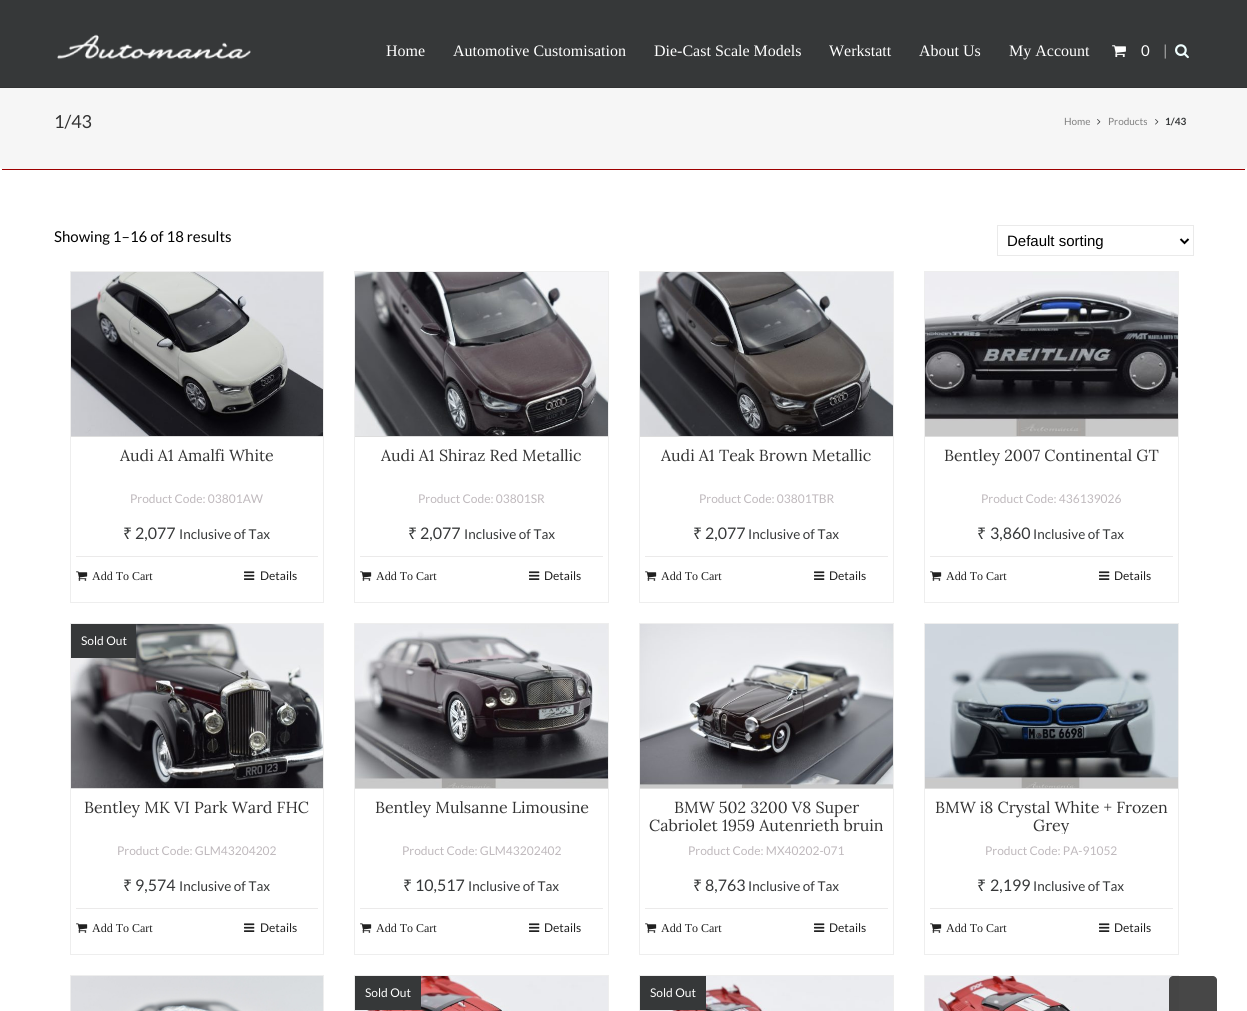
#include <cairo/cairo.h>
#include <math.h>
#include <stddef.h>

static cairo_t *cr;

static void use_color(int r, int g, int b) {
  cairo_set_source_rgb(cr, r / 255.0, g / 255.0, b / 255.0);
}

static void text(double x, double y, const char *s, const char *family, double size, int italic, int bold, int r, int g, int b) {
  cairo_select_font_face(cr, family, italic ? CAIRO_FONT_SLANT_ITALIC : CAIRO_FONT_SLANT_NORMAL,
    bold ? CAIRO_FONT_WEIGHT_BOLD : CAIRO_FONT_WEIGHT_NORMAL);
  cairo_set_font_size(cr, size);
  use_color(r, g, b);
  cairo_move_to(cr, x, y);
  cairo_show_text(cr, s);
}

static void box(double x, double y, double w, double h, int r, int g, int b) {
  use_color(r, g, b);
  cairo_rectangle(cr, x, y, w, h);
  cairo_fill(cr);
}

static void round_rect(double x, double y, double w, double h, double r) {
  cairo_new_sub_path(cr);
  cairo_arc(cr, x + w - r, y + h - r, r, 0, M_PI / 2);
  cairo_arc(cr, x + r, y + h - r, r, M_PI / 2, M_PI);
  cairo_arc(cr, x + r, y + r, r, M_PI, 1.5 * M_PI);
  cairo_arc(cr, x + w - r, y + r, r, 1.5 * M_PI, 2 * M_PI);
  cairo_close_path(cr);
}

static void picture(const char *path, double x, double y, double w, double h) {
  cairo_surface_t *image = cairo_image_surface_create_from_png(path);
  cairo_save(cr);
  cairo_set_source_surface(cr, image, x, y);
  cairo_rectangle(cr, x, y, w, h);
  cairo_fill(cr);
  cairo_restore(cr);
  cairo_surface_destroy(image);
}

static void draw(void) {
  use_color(255, 255, 255);
  cairo_paint(cr);
  use_color(246, 246, 246);
  round_rect(0, 0, 1247, 170, 4);
  cairo_fill(cr);
  box(0, 0, 1247, 87, 54, 56, 57);
  box(0, 87, 1247, 1, 49, 50, 51);
  picture("img_01.png", 57, 34, 194, 26);
  picture("img_02.png", 1112, 45, 14, 13);
  picture("img_03.png", 1175, 44, 14, 15);
  box(2, 169, 1243, 1, 158, 0, 0);
  picture("img_04.png", 1097, 119, 4, 6);
  picture("img_04.png", 1155, 119, 4, 6);
  cairo_rectangle(cr, 997.5, 225.5, 196, 30);
  use_color(234, 234, 234);
  cairo_set_line_width(cr, 1);
  cairo_stroke(cr);
  cairo_new_path(cr);
  cairo_move_to(cr, 1180.5, 239);
  cairo_line_to(cr, 1184.5, 243);
  cairo_line_to(cr, 1188.5, 239);
  use_color(0, 0, 0);
  cairo_set_line_width(cr, 2);
  cairo_stroke(cr);
  cairo_rectangle(cr, 70.5, 271.5, 253, 331);
  use_color(238, 238, 238);
  cairo_set_line_width(cr, 1);
  cairo_stroke(cr);
  picture("img_05.png", 71, 272, 252, 164);
  box(71, 436, 252, 1, 221, 221, 221);
  box(76, 556, 242, 1, 235, 234, 234);
  picture("img_06.png", 76, 571, 12, 10);
  picture("img_07.png", 244, 571, 11, 9);
  cairo_rectangle(cr, 354.5, 271.5, 254, 331);
  use_color(238, 238, 238);
  cairo_stroke(cr);
  picture("img_08.png", 355, 272, 253, 164);
  box(355, 436, 253, 1, 221, 221, 221);
  box(360, 556, 243, 1, 235, 234, 234);
  picture("img_06.png", 360, 571, 12, 10);
  picture("img_07.png", 529, 571, 11, 9);
  cairo_rectangle(cr, 639.5, 271.5, 254, 331);
  use_color(238, 238, 238);
  cairo_stroke(cr);
  picture("img_09.png", 640, 272, 253, 164);
  box(640, 436, 253, 1, 221, 221, 221);
  box(645, 556, 243, 1, 235, 234, 234);
  picture("img_06.png", 645, 571, 12, 10);
  picture("img_07.png", 814, 571, 11, 9);
  cairo_rectangle(cr, 924.5, 271.5, 254, 331);
  use_color(238, 238, 238);
  cairo_stroke(cr);
  picture("img_10.png", 925, 272, 253, 164);
  box(925, 436, 253, 1, 221, 221, 221);
  box(930, 556, 243, 1, 235, 234, 234);
  picture("img_06.png", 930, 571, 12, 10);
  picture("img_07.png", 1099, 571, 11, 9);
  cairo_rectangle(cr, 70.5, 623.5, 253, 331);
  use_color(238, 238, 238);
  cairo_stroke(cr);
  picture("img_11.png", 71, 624, 252, 164);
  box(71, 624, 65, 34, 54, 56, 57);
  box(71, 788, 252, 1, 221, 221, 221);
  box(76, 908, 242, 1, 235, 234, 234);
  picture("img_06.png", 76, 923, 12, 10);
  picture("img_07.png", 244, 923, 11, 9);
  cairo_rectangle(cr, 354.5, 623.5, 254, 331);
  use_color(238, 238, 238);
  cairo_stroke(cr);
  picture("img_12.png", 355, 624, 253, 164);
  box(355, 788, 253, 1, 221, 221, 221);
  box(360, 908, 243, 1, 235, 234, 234);
  picture("img_06.png", 360, 923, 12, 10);
  picture("img_07.png", 529, 923, 11, 9);
  cairo_rectangle(cr, 639.5, 623.5, 254, 331);
  use_color(238, 238, 238);
  cairo_stroke(cr);
  picture("img_13.png", 640, 624, 253, 164);
  box(640, 788, 253, 1, 221, 221, 221);
  box(645, 908, 243, 1, 235, 234, 234);
  picture("img_06.png", 645, 923, 12, 10);
  picture("img_07.png", 814, 923, 11, 9);
  cairo_rectangle(cr, 924.5, 623.5, 254, 331);
  use_color(238, 238, 238);
  cairo_stroke(cr);
  picture("img_14.png", 925, 624, 253, 164);
  box(925, 788, 253, 1, 221, 221, 221);
  box(930, 908, 243, 1, 235, 234, 234);
  picture("img_06.png", 930, 923, 12, 10);
  picture("img_07.png", 1099, 923, 11, 9);
  cairo_rectangle(cr, 70.5, 975.5, 253, 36);
  use_color(238, 238, 238);
  cairo_stroke(cr);
  picture("img_15.png", 71, 976, 252, 35);
  cairo_rectangle(cr, 354.5, 975.5, 254, 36);
  cairo_stroke(cr);
  picture("img_16.png", 355, 976, 253, 35);
  box(355, 976, 66, 34, 54, 56, 57);
  cairo_rectangle(cr, 639.5, 975.5, 254, 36);
  use_color(238, 238, 238);
  cairo_stroke(cr);
  picture("img_17.png", 640, 976, 253, 35);
  box(640, 976, 66, 34, 54, 56, 57);
  cairo_rectangle(cr, 924.5, 975.5, 254, 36);
  use_color(238, 238, 238);
  cairo_stroke(cr);
  picture("img_18.png", 925, 976, 253, 35);
  cairo_set_source_rgba(cr, 0.2, 0.2, 0.2, 0.9);
  cairo_new_path(cr);
  cairo_move_to(cr, 1173, 976);
  cairo_line_to(cr, 1213, 976);
  cairo_curve_to(cr, 1215, 976, 1217, 978, 1217, 980);
  cairo_line_to(cr, 1217, 1011);
  cairo_line_to(cr, 1169, 1011);
  cairo_line_to(cr, 1169, 980);
  cairo_curve_to(cr, 1169, 978, 1171, 976, 1173, 976);
  cairo_close_path(cr);
  cairo_fill(cr);
  text(386, 56, "Home", "Liberation Serif", 16, 0, 0, 255, 255, 255);
  text(453, 56, "Automotive Customisation", "Liberation Serif", 16, 0, 0, 255, 255, 255);
  text(654, 56, "Die-Cast Scale Models", "Liberation Serif", 16, 0, 0, 255, 255, 255);
  text(829, 56, "Werkstatt", "Liberation Serif", 16, 0, 0, 255, 255, 255);
  text(919, 56, "About Us", "Liberation Serif", 16, 0, 0, 255, 255, 255);
  text(1009, 56, "My Account", "Liberation Serif", 16, 0, 0, 255, 255, 255);
  text(1141, 56, "0", "Lato", 15, 0, 0, 255, 255, 255);
  text(1163, 56, "|", "Lato", 15, 0, 0, 177, 177, 177);
  text(54, 128, "1/43", "Lato", 18, 0, 0, 51, 51, 51);
  text(1064, 125, "Home", "Lato", 10, 0, 0, 128, 128, 128);
  text(1108, 125, "Products", "Lato", 10, 0, 0, 128, 128, 128);
  text(1165, 125, "1/43", "Lato", 10, 0, 1, 54, 56, 57);
  text(54, 242, "Showing 1–16 of 18 results", "Lato", 15, 0, 0, 0, 0, 0);
  text(1007, 246, "Default sorting", "Liberation Sans", 15, 0, 0, 0, 0, 0);
  text(120, 461, "Audi A1 Amalfi White", "Lora", 16, 0, 0, 51, 51, 51);
  text(130, 503, "Product Code: 03801AW", "Lato", 12, 0, 0, 191, 185, 189);
  text(123, 539, "₹", "Noto Sans", 16, 0, 0, 54, 56, 57);
  text(135, 539, "2,077", "Lato", 16, 0, 0, 54, 56, 57);
  text(179, 539, "Inclusive of Tax", "Lato", 13.5, 0, 0, 54, 56, 57);
  text(92, 580, "Add To Cart", "Liberation Serif", 12, 0, 0, 32, 32, 32);
  text(260, 580, "Details", "Lato", 12, 0, 0, 32, 32, 32);
  text(381, 461, "Audi A1 Shiraz Red Metallic", "Lora", 16, 0, 0, 51, 51, 51);
  text(418, 503, "Product Code: 03801SR", "Lato", 12, 0, 0, 191, 185, 189);
  text(408, 539, "₹", "Noto Sans", 16, 0, 0, 54, 56, 57);
  text(420, 539, "2,077", "Lato", 16, 0, 0, 54, 56, 57);
  text(464, 539, "Inclusive of Tax", "Lato", 13.5, 0, 0, 54, 56, 57);
  text(376, 580, "Add To Cart", "Liberation Serif", 12, 0, 0, 32, 32, 32);
  text(544, 580, "Details", "Lato", 12, 0, 0, 32, 32, 32);
  text(661, 461, "Audi A1 Teak Brown Metallic", "Lora", 16, 0, 0, 51, 51, 51);
  text(699, 503, "Product Code: 03801TBR", "Lato", 12, 0, 0, 191, 185, 189);
  text(693, 539, "₹", "Noto Sans", 16, 0, 0, 54, 56, 57);
  text(705, 539, "2,077", "Lato", 16, 0, 0, 54, 56, 57);
  text(748, 539, "Inclusive of Tax", "Lato", 13.5, 0, 0, 54, 56, 57);
  text(661, 580, "Add To Cart", "Liberation Serif", 12, 0, 0, 32, 32, 32);
  text(829, 580, "Details", "Lato", 12, 0, 0, 32, 32, 32);
  text(944, 461, "Bentley 2007 Continental GT", "Lora", 16, 0, 0, 51, 51, 51);
  text(981, 503, "Product Code: 436139026", "Lato", 12, 0, 0, 191, 185, 189);
  text(977, 539, "₹", "Noto Sans", 16, 0, 0, 54, 56, 57);
  text(990, 539, "3,860", "Lato", 16, 0, 0, 54, 56, 57);
  text(1033, 539, "Inclusive of Tax", "Lato", 13.5, 0, 0, 54, 56, 57);
  text(946, 580, "Add To Cart", "Liberation Serif", 12, 0, 0, 32, 32, 32);
  text(1114, 580, "Details", "Lato", 12, 0, 0, 32, 32, 32);
  text(81, 645, "Sold Out", "Lato", 12, 0, 0, 255, 255, 255);
  text(84, 813, "Bentley MK VI Park Ward FHC", "Lora", 16, 0, 0, 51, 51, 51);
  text(117, 855, "Product Code: GLM43204202", "Lato", 12, 0, 0, 191, 185, 189);
  text(123, 891, "₹", "Noto Sans", 16, 0, 0, 54, 56, 57);
  text(135, 891, "9,574", "Lato", 16, 0, 0, 54, 56, 57);
  text(179, 891, "Inclusive of Tax", "Lato", 13.5, 0, 0, 54, 56, 57);
  text(92, 932, "Add To Cart", "Liberation Serif", 12, 0, 0, 32, 32, 32);
  text(260, 932, "Details", "Lato", 12, 0, 0, 32, 32, 32);
  text(375, 813, "Bentley Mulsanne Limousine", "Lora", 16, 0, 0, 51, 51, 51);
  text(402, 855, "Product Code: GLM43202402", "Lato", 12, 0, 0, 191, 185, 189);
  text(403, 891, "₹", "Noto Sans", 16, 0, 0, 54, 56, 57);
  text(415, 891, "10,517", "Lato", 16, 0, 0, 54, 56, 57);
  text(468, 891, "Inclusive of Tax", "Lato", 13.5, 0, 0, 54, 56, 57);
  text(376, 932, "Add To Cart", "Liberation Serif", 12, 0, 0, 32, 32, 32);
  text(544, 932, "Details", "Lato", 12, 0, 0, 32, 32, 32);
  text(674, 813, "BMW 502 3200 V8 Super", "Lora", 16, 0, 0, 51, 51, 51);
  text(649, 831, "Cabriolet 1959 Autenrieth bruin", "Lora", 16, 0, 0, 51, 51, 51);
  text(688, 855, "Product Code: MX40202-071", "Lato", 12, 0, 0, 191, 185, 189);
  text(693, 891, "₹", "Noto Sans", 16, 0, 0, 54, 56, 57);
  text(705, 891, "8,763", "Lato", 16, 0, 0, 54, 56, 57);
  text(748, 891, "Inclusive of Tax", "Lato", 13.5, 0, 0, 54, 56, 57);
  text(661, 932, "Add To Cart", "Liberation Serif", 12, 0, 0, 32, 32, 32);
  text(829, 932, "Details", "Lato", 12, 0, 0, 32, 32, 32);
  text(935, 813, "BMW i8 Crystal White + Frozen", "Lora", 16, 0, 0, 51, 51, 51);
  cairo_save(cr);
  cairo_rectangle(cr, 930, 799, 243, 35);
  cairo_clip(cr);
  text(1033, 831, "Grey", "Lora", 16, 0, 0, 51, 51, 51);
  cairo_restore(cr);
  text(985, 855, "Product Code: PA-91052", "Lato", 12, 0, 0, 191, 185, 189);
  text(977, 891, "₹", "Noto Sans", 16, 0, 0, 54, 56, 57);
  text(990, 891, "2,199", "Lato", 16, 0, 0, 54, 56, 57);
  text(1033, 891, "Inclusive of Tax", "Lato", 13.5, 0, 0, 54, 56, 57);
  text(946, 932, "Add To Cart", "Liberation Serif", 12, 0, 0, 32, 32, 32);
  text(1114, 932, "Details", "Lato", 12, 0, 0, 32, 32, 32);
  text(365, 997, "Sold Out", "Lato", 12, 0, 0, 255, 255, 255);
  text(650, 997, "Sold Out", "Lato", 12, 0, 0, 255, 255, 255);
}

int main(void) {
  cairo_surface_t *surface = cairo_image_surface_create(CAIRO_FORMAT_RGB24, 1247, 1011);
  cr = cairo_create(surface);
  cairo_font_options_t *options = cairo_font_options_create();
  cairo_font_options_set_hint_metrics(options, CAIRO_HINT_METRICS_OFF);
  cairo_font_options_set_hint_style(options, CAIRO_HINT_STYLE_NONE);
  cairo_set_font_options(cr, options);
  cairo_set_miter_limit(cr, 4);
  draw();
  cairo_surface_write_to_png(surface, "out.png");
  cairo_font_options_destroy(options);
  cairo_destroy(cr);
  cairo_surface_destroy(surface);
  return 0;
}
